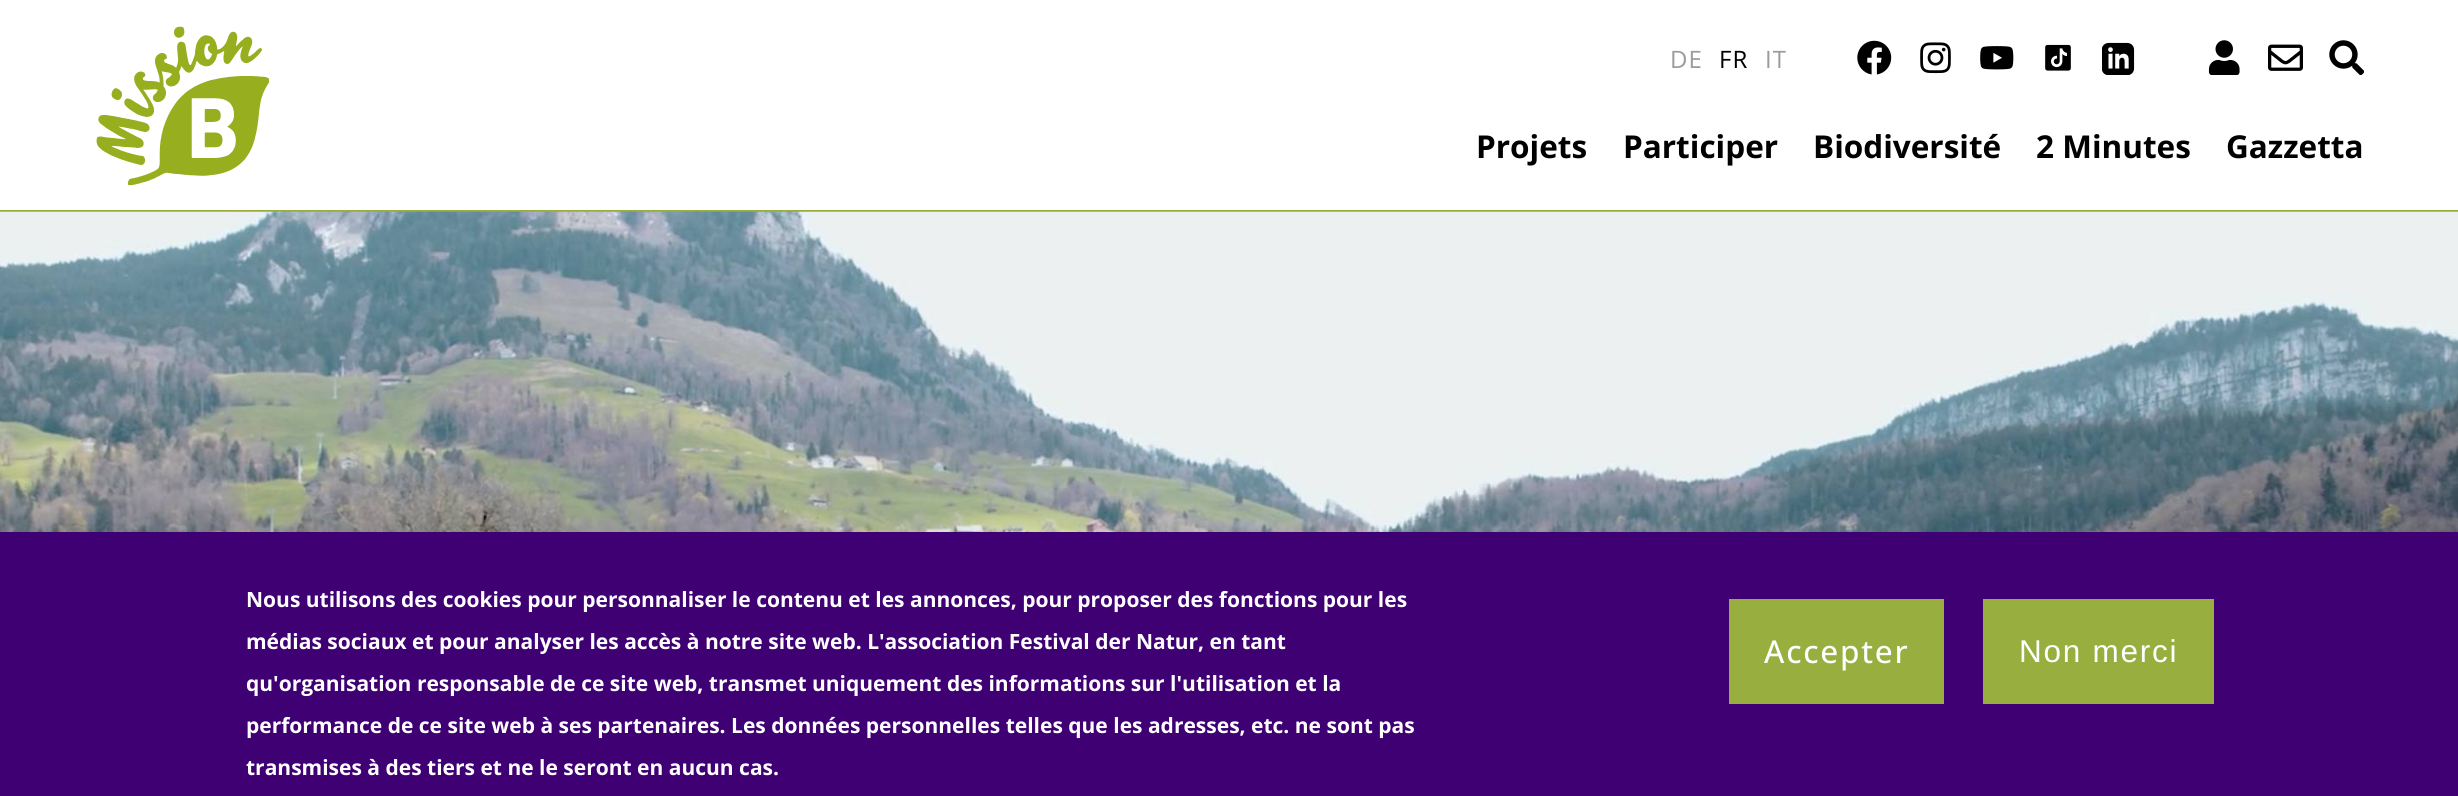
#include <cairo/cairo.h>
#include <math.h>
#include <stddef.h>

static cairo_t *cr;

static void use_color(int r, int g, int b) {
  cairo_set_source_rgb(cr, r / 255.0, g / 255.0, b / 255.0);
}

static void text(double x, double y, const char *s, const char *family, double size, int italic, int bold, int r, int g, int b) {
  cairo_select_font_face(cr, family, italic ? CAIRO_FONT_SLANT_ITALIC : CAIRO_FONT_SLANT_NORMAL,
    bold ? CAIRO_FONT_WEIGHT_BOLD : CAIRO_FONT_WEIGHT_NORMAL);
  cairo_set_font_size(cr, size);
  use_color(r, g, b);
  cairo_move_to(cr, x, y);
  cairo_show_text(cr, s);
}

static void spaced_text(double x, double y, const char *s, double letter, double word) {
  cairo_move_to(cr, x, y);
  while (*s) {
    char ch[5] = {0};
    int n = 0;
    do ch[n++] = *s++; while ((*s & 0xC0) == 0x80);
    cairo_show_text(cr, ch);
    cairo_rel_move_to(cr, letter + word * (*ch == ' '), 0);
  }
}

static void box(double x, double y, double w, double h, int r, int g, int b) {
  use_color(r, g, b);
  cairo_rectangle(cr, x, y, w, h);
  cairo_fill(cr);
}

static void picture(const char *path, double x, double y, double w, double h) {
  cairo_surface_t *image = cairo_image_surface_create_from_png(path);
  cairo_save(cr);
  cairo_set_source_surface(cr, image, x, y);
  cairo_rectangle(cr, x, y, w, h);
  cairo_fill(cr);
  cairo_restore(cr);
  cairo_surface_destroy(image);
}

static void draw(void) {
  use_color(255, 255, 255);
  cairo_paint(cr);
  box(0, 210, 2458, 2, 152, 174, 62);
  picture("img_01.png", 96, 26, 174, 160);
  picture("img_02.png", 1857, 40, 35, 35);
  picture("img_03.png", 1920, 42, 31, 32);
  picture("img_04.png", 1980, 46, 34, 24);
  picture("img_05.png", 2045, 44, 26, 27);
  picture("img_06.png", 2102, 42, 33, 33);
  picture("img_07.png", 2208, 40, 32, 35);
  picture("img_08.png", 2268, 44, 35, 27);
  picture("img_09.png", 2329, 40, 35, 35);
  picture("img_10.png", 0, 211, 2458, 321);
  box(0, 532, 2458, 264, 62, 0, 114);
  box(1729, 599, 215, 105, 152, 174, 62);
  box(1983, 599, 231, 105, 152, 174, 62);
  cairo_select_font_face(cr, "Open Sans", CAIRO_FONT_SLANT_NORMAL, CAIRO_FONT_WEIGHT_NORMAL);
  cairo_set_font_size(cr, 24);
  use_color(155, 155, 155);
  spaced_text(1670, 68, "DE", 1, 0);
  use_color(0, 0, 0);
  spaced_text(1719, 68, "FR", 1, 0);
  use_color(155, 155, 155);
  spaced_text(1765, 68, "IT", 1, 0);
  text(1476, 158, "Projets", "Open Sans", 31.5, 0, 1, 0, 0, 0);
  text(1623, 158, "Participer", "Open Sans", 31.5, 0, 1, 0, 0, 0);
  text(1813, 158, "Biodiversité", "Open Sans", 31.5, 0, 1, 0, 0, 0);
  text(2036, 158, "2 Minutes", "Open Sans", 31.5, 0, 1, 0, 0, 0);
  text(2226, 158, "Gazzetta", "Open Sans", 31.5, 0, 1, 0, 0, 0);
  text(246, 607, "Nous utilisons des cookies pour personnaliser le contenu et les annonces, pour proposer des fonctions pour les", "Open Sans", 21, 0, 1, 255, 255, 255);
  text(246, 649, "médias sociaux et pour analyser les accès à notre site web. L'association Festival der Natur, en tant", "Open Sans", 21, 0, 1, 255, 255, 255);
  text(246, 691, "qu'organisation responsable de ce site web, transmet uniquement des informations sur l'utilisation et la", "Open Sans", 21, 0, 1, 255, 255, 255);
  text(246, 733, "performance de ce site web à ses partenaires. Les données personnelles telles que les adresses, etc. ne sont pas", "Open Sans", 21, 0, 1, 255, 255, 255);
  text(246, 775, "transmises à des tiers et ne le seront en aucun cas.", "Open Sans", 21, 0, 1, 255, 255, 255);
  cairo_select_font_face(cr, "Open Sans Medium", CAIRO_FONT_SLANT_NORMAL, CAIRO_FONT_WEIGHT_NORMAL);
  cairo_set_font_size(cr, 31.5);
  spaced_text(1764, 663, "Accepter", 1.75, 0);
  cairo_select_font_face(cr, "Liberation Sans", CAIRO_FONT_SLANT_NORMAL, CAIRO_FONT_WEIGHT_NORMAL);
  spaced_text(2019, 662, "Non merci", 1.75, 0);
}

int main(void) {
  cairo_surface_t *surface = cairo_image_surface_create(CAIRO_FORMAT_RGB24, 2458, 796);
  cr = cairo_create(surface);
  cairo_font_options_t *options = cairo_font_options_create();
  cairo_font_options_set_hint_metrics(options, CAIRO_HINT_METRICS_OFF);
  cairo_font_options_set_hint_style(options, CAIRO_HINT_STYLE_NONE);
  cairo_set_font_options(cr, options);
  cairo_set_miter_limit(cr, 4);
  draw();
  cairo_surface_write_to_png(surface, "out.png");
  cairo_font_options_destroy(options);
  cairo_destroy(cr);
  cairo_surface_destroy(surface);
  return 0;
}
